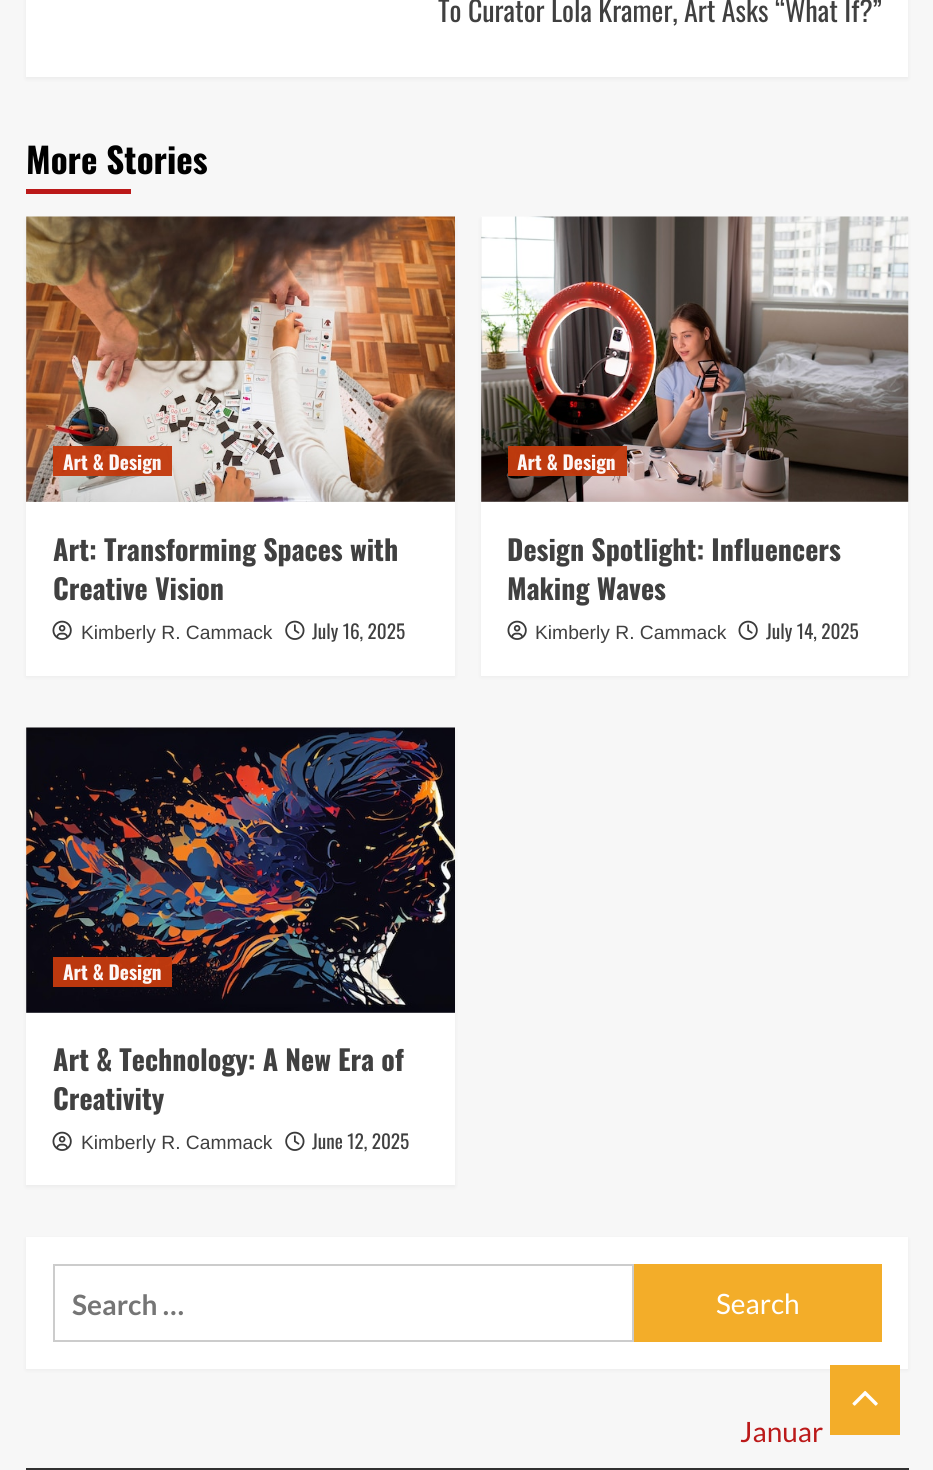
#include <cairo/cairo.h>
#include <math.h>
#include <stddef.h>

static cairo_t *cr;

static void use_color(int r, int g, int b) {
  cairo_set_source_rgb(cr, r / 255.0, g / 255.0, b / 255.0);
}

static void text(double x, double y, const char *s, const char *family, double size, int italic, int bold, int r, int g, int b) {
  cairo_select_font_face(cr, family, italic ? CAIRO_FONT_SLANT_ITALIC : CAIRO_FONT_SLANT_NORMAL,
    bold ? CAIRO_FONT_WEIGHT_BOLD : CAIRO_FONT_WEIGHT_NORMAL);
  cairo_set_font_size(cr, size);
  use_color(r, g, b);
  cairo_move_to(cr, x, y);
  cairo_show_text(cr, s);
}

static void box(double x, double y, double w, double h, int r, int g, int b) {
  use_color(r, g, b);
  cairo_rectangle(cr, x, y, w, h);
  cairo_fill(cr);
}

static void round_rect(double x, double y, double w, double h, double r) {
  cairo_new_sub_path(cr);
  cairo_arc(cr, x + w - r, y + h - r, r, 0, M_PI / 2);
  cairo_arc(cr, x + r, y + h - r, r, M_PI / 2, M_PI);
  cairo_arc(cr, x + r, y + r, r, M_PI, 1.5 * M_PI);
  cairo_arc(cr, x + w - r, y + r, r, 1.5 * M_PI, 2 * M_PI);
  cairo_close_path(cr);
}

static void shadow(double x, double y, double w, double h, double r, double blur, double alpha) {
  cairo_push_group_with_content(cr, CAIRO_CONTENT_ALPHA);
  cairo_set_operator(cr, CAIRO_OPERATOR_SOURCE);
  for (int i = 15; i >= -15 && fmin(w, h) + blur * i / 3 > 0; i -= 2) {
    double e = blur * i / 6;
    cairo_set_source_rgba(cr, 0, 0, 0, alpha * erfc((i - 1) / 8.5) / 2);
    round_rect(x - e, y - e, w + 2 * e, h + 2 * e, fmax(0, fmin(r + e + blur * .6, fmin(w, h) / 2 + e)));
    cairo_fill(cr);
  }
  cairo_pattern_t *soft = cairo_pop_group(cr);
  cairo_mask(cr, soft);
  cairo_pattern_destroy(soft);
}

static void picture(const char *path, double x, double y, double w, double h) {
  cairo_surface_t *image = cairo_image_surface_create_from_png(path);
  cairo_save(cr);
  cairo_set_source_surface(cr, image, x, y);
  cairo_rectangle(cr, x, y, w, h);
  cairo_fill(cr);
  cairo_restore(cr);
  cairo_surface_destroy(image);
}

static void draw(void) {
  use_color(247, 247, 247);
  cairo_paint(cr);
  use_color(0, 0, 0);
  shadow(26, -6, 882, 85, 0, 2, 0.05);
  box(26, 0, 882, 77, 255, 255, 255);
  box(26, 189, 105, 5, 187, 25, 25);
  use_color(0, 0, 0);
  shadow(26, 219, 429, 458, 0, 2, 0.05);
  box(26, 502, 429, 174, 255, 255, 255);
  box(26, 217, 429, 285, 216, 216, 216);
  picture("img_01.png", 26, 216, 429, 286);
  cairo_set_source_rgba(cr, 0.761, 0.231, 0.055, 0.96);
  cairo_rectangle(cr, 53, 446, 119, 30);
  cairo_fill(cr);
  picture("img_02.png", 52, 620, 20, 20);
  picture("img_03.png", 285, 620, 20, 20);
  use_color(0, 0, 0);
  shadow(481, 219, 427, 458, 0, 2, 0.05);
  box(481, 502, 427, 174, 255, 255, 255);
  box(481, 217, 427, 285, 216, 216, 216);
  picture("img_04.png", 481, 216, 428, 286);
  cairo_set_source_rgba(cr, 0.761, 0.231, 0.055, 0.96);
  cairo_rectangle(cr, 508, 446, 119, 30);
  cairo_fill(cr);
  picture("img_02.png", 507, 620, 20, 20);
  picture("img_05.png", 738, 620, 20, 20);
  use_color(0, 0, 0);
  shadow(26, 730, 429, 457, 0, 2, 0.05);
  box(26, 1013, 429, 172, 255, 255, 255);
  box(26, 728, 429, 285, 216, 216, 216);
  picture("img_06.png", 26, 727, 429, 286);
  cairo_set_source_rgba(cr, 0.761, 0.231, 0.055, 0.96);
  cairo_rectangle(cr, 53, 957, 119, 30);
  cairo_fill(cr);
  picture("img_02.png", 52, 1131, 20, 20);
  picture("img_03.png", 285, 1131, 20, 20);
  use_color(0, 0, 0);
  shadow(26, 1239, 882, 131, 0, 2, 0.05);
  box(26, 1237, 882, 132, 255, 255, 255);
  cairo_rectangle(cr, 54, 1265, 579, 76);
  use_color(204, 204, 204);
  cairo_stroke(cr);
  box(634, 1264, 248, 78, 243, 173, 41);
  box(26, 1468, 883, 2, 49, 49, 49);
  box(830, 1365, 70, 70, 243, 173, 41);
  picture("img_07.png", 852, 1390, 26, 16);
  text(438, 22, "To Curator Lola Kramer, Art Asks “What If?”", "Oswald", 28, 0, 0, 64, 64, 64);
  text(26, 174, "More Stories", "Oswald", 35, 0, 1, 0, 0, 0);
  text(63, 470, "Art & Design", "Oswald", 19.25, 0, 1, 253, 247, 246);
  text(53, 561, "Art: Transforming Spaces with", "Oswald", 28, 0, 1, 64, 64, 64);
  text(53, 600, "Creative Vision", "Oswald", 28, 0, 1, 64, 64, 64);
  text(81, 639, "Kimberly R. Cammack", "Liberation Sans", 19.25, 0, 0, 64, 64, 64);
  text(312, 639, "July 16, 2025", "Oswald", 19.25, 0, 0, 64, 64, 64);
  text(517, 470, "Art & Design", "Oswald", 19.25, 0, 1, 253, 247, 246);
  text(507, 561, "Design Spotlight: Influencers", "Oswald", 28, 0, 1, 64, 64, 64);
  text(507, 600, "Making Waves", "Oswald", 28, 0, 1, 64, 64, 64);
  text(535, 639, "Kimberly R. Cammack", "Liberation Sans", 19.25, 0, 0, 64, 64, 64);
  text(766, 639, "July 14, 2025", "Oswald", 19.25, 0, 0, 64, 64, 64);
  text(63, 980, "Art & Design", "Oswald", 19.25, 0, 1, 253, 247, 246);
  text(53, 1071, "Art & Technology: A New Era of", "Oswald", 28, 0, 1, 64, 64, 64);
  text(53, 1110, "Creativity", "Oswald", 28, 0, 1, 64, 64, 64);
  text(81, 1149, "Kimberly R. Cammack", "Liberation Sans", 19.25, 0, 0, 64, 64, 64);
  text(312, 1149, "June 12, 2025", "Oswald", 19.25, 0, 0, 64, 64, 64);
  text(72, 1315, "Search …", "Lato", 28, 0, 1, 117, 117, 117);
  text(716, 1314, "Search", "Lato", 28, 0, 0, 255, 255, 255);
  text(740, 1442, "Januar", "Lato", 28, 0, 0, 187, 25, 25);
}

int main(void) {
  cairo_surface_t *surface = cairo_image_surface_create(CAIRO_FORMAT_RGB24, 933, 1470);
  cr = cairo_create(surface);
  cairo_font_options_t *options = cairo_font_options_create();
  cairo_font_options_set_hint_metrics(options, CAIRO_HINT_METRICS_OFF);
  cairo_font_options_set_hint_style(options, CAIRO_HINT_STYLE_NONE);
  cairo_set_font_options(cr, options);
  cairo_set_miter_limit(cr, 4);
  draw();
  cairo_surface_write_to_png(surface, "out.png");
  cairo_font_options_destroy(options);
  cairo_destroy(cr);
  cairo_surface_destroy(surface);
  return 0;
}
